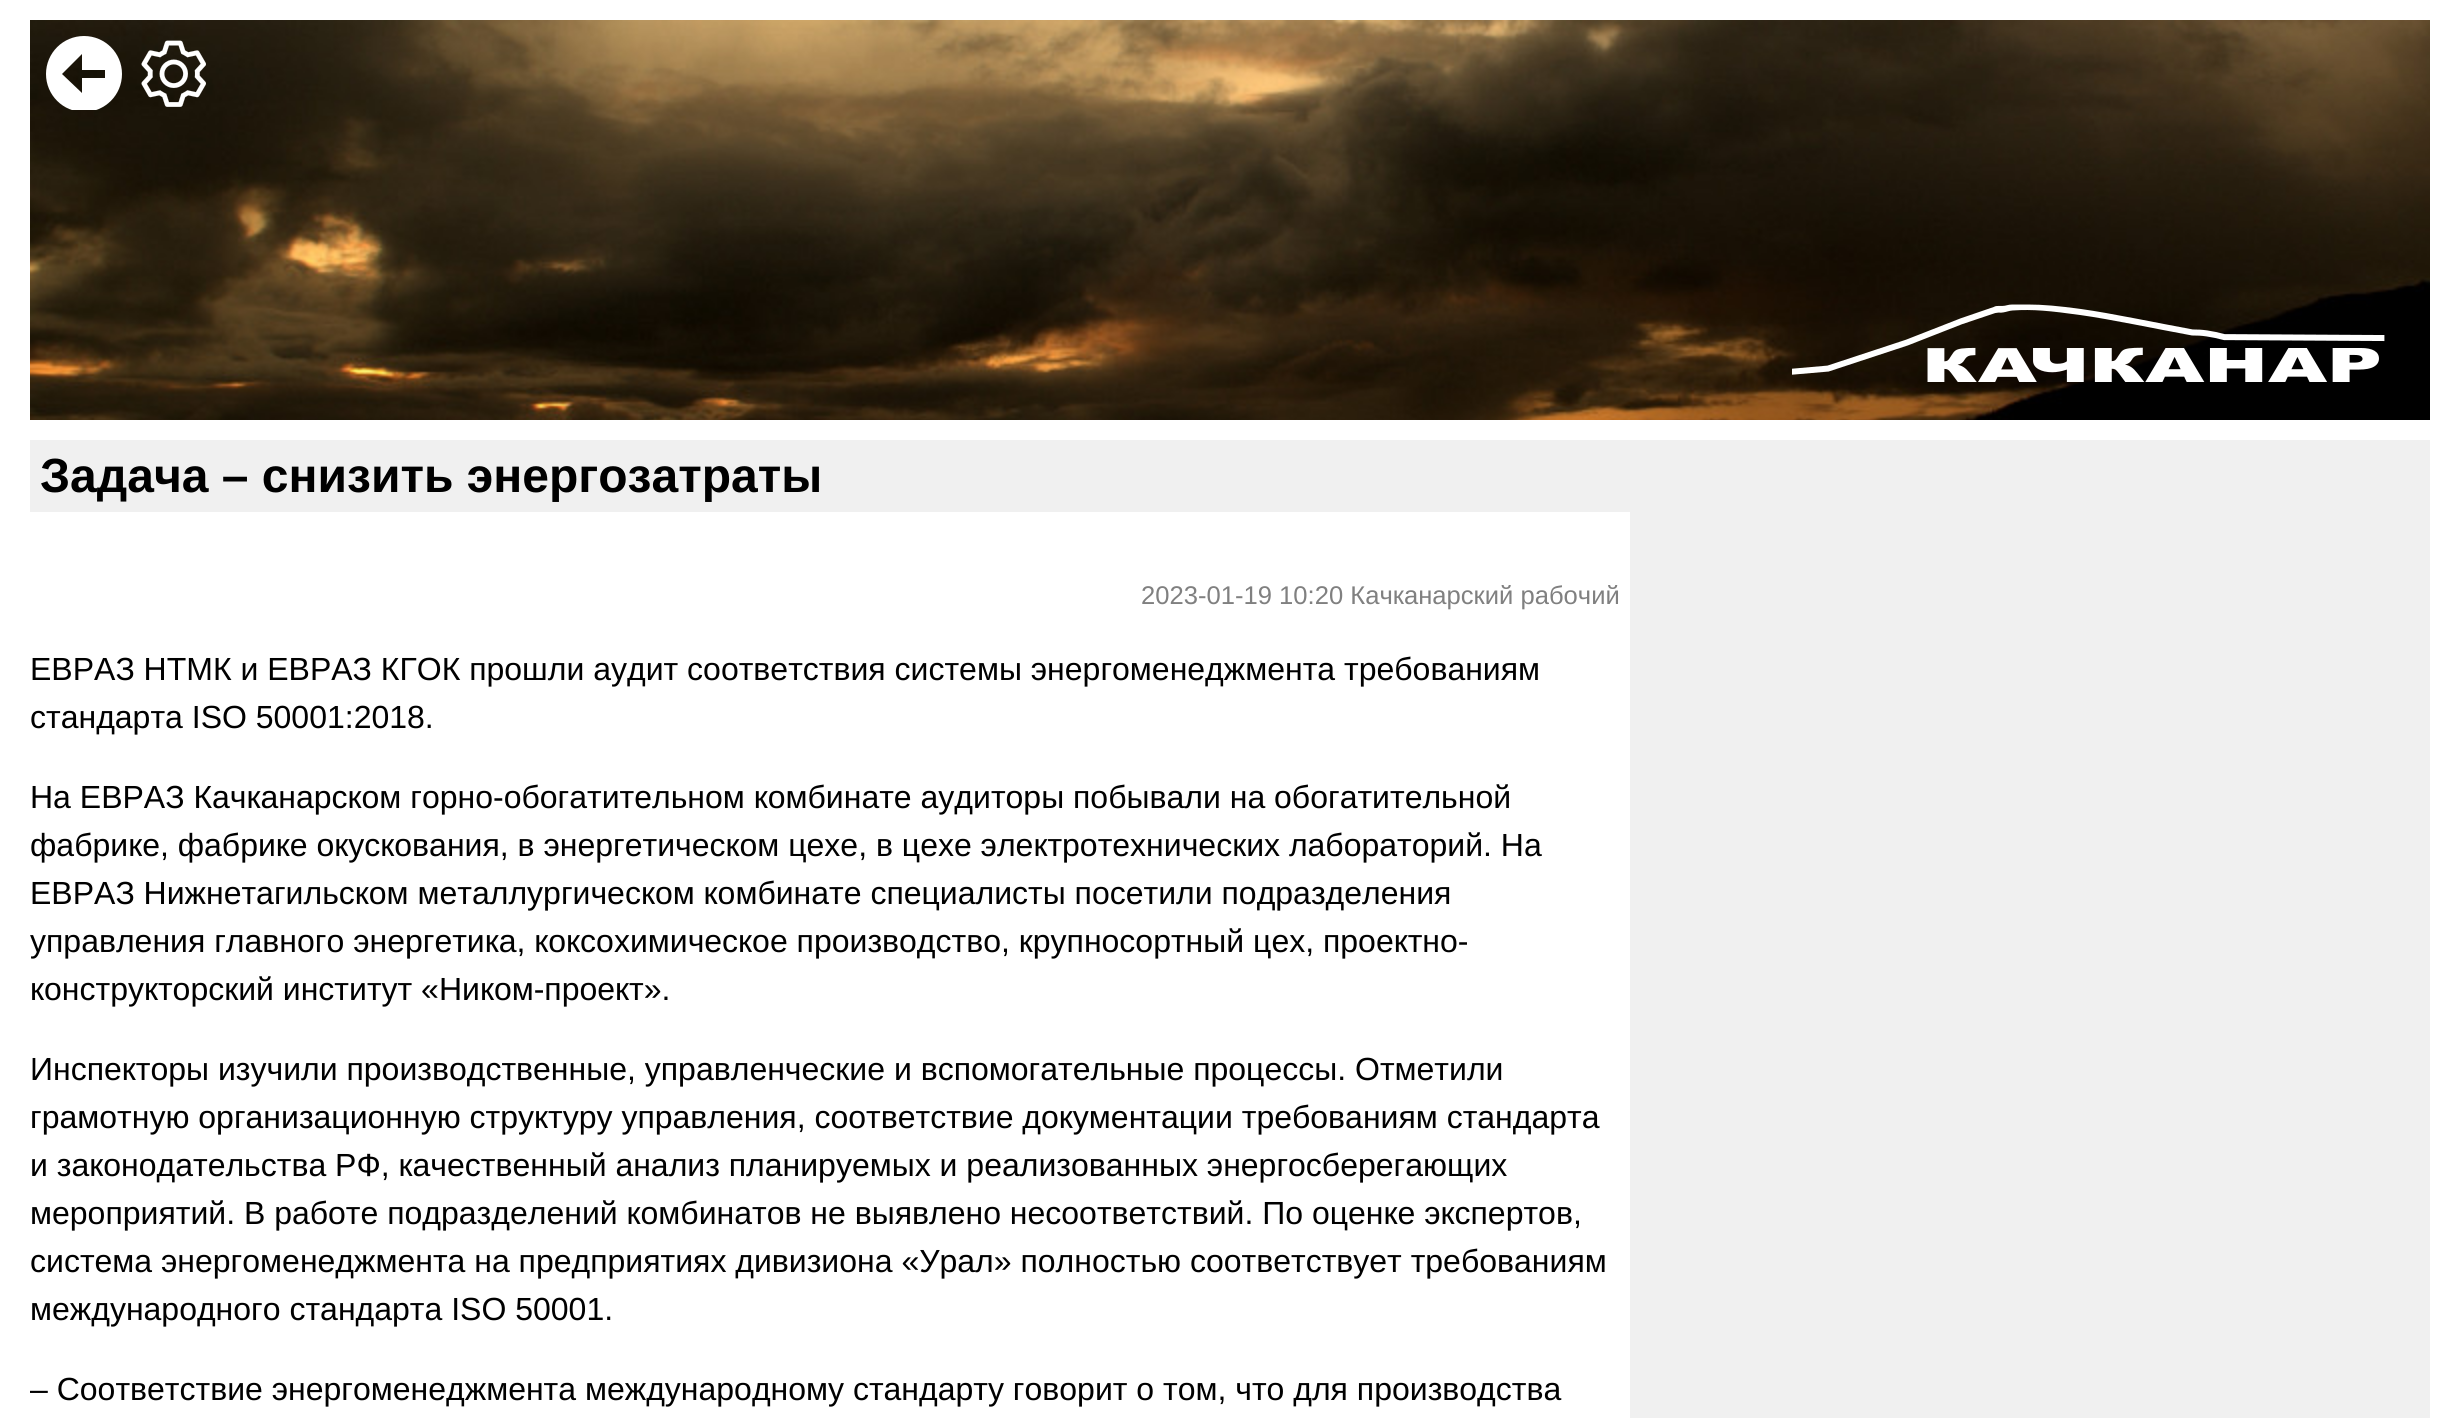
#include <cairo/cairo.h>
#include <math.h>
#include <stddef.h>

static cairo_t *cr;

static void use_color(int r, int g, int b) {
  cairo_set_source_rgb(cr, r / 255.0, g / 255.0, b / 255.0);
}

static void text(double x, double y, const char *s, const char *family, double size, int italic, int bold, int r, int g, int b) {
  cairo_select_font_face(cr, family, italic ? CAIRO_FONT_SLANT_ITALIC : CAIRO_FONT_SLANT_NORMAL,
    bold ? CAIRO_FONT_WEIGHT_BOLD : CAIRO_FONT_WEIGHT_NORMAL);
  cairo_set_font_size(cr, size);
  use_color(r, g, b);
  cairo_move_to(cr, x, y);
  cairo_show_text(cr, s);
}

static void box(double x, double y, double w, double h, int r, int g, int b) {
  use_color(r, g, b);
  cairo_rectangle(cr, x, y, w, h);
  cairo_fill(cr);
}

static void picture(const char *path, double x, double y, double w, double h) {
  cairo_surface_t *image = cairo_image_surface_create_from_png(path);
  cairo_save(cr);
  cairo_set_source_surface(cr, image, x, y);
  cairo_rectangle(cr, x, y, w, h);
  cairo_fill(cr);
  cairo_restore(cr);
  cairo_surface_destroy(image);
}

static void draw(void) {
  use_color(255, 255, 255);
  cairo_paint(cr);
  picture("img_01.png", 30, 20, 2400, 400);
  cairo_save(cr);
  cairo_rectangle(cr, 46, 36, 76, 74);
  cairo_clip(cr);
  use_color(255, 255, 255);
  cairo_new_path(cr);
  cairo_move_to(cr, 84, 36);
  cairo_curve_to(cr, 63, 36, 46, 53, 46, 74);
  cairo_curve_to(cr, 46, 95, 63, 112, 84, 112);
  cairo_curve_to(cr, 105, 112, 122, 95, 122, 74);
  cairo_curve_to(cr, 122, 53, 105, 36, 84, 36);
  cairo_close_path(cr);
  cairo_move_to(cr, 105, 78);
  cairo_line_to(cr, 82, 78);
  cairo_line_to(cr, 82, 93);
  cairo_line_to(cr, 62, 74);
  cairo_line_to(cr, 82, 54);
  cairo_line_to(cr, 82, 70);
  cairo_line_to(cr, 105, 70);
  cairo_close_path(cr);
  cairo_fill(cr);
  cairo_restore(cr);
  picture("img_02.png", 141, 40, 65, 67);
  picture("img_03.png", 1792, 304, 593, 78);
  box(30, 440, 1600, 72, 240, 240, 240);
  box(1630, 440, 800, 978, 240, 240, 240);
  text(40, 492, "Задача – снизить энергозатраты", "Liberation Sans", 48, 0, 1, 0, 0, 0);
  text(1141, 604, "2023-01-19 10:20 Качканарский рабочий", "Liberation Sans", 25.6, 0, 0, 128, 128, 128);
  text(30, 680, "ЕВРАЗ НТМК и ЕВРАЗ КГОК прошли аудит соответствия системы энергоменеджмента требованиям", "Liberation Sans", 32, 0, 0, 0, 0, 0);
  text(30, 728, "стандарта ISO 50001:2018.", "Liberation Sans", 32, 0, 0, 0, 0, 0);
  text(30, 808, "На ЕВРАЗ Качканарском горно-обогатительном комбинате аудиторы побывали на обогатительной", "Liberation Sans", 32, 0, 0, 0, 0, 0);
  text(30, 856, "фабрике, фабрике окускования, в энергетическом цехе, в цехе электротехнических лабораторий. На", "Liberation Sans", 32, 0, 0, 0, 0, 0);
  text(30, 904, "ЕВРАЗ Нижнетагильском металлургическом комбинате специалисты посетили подразделения", "Liberation Sans", 32, 0, 0, 0, 0, 0);
  text(30, 952, "управления главного энергетика, коксохимическое производство, крупносортный цех, проектно-", "Liberation Sans", 32, 0, 0, 0, 0, 0);
  text(30, 1000, "конструкторский институт «Ником-проект».", "Liberation Sans", 32, 0, 0, 0, 0, 0);
  text(30, 1080, "Инспекторы изучили производственные, управленческие и вспомогательные процессы. Отметили", "Liberation Sans", 32, 0, 0, 0, 0, 0);
  text(30, 1128, "грамотную организационную структуру управления, соответствие документации требованиям стандарта", "Liberation Sans", 32, 0, 0, 0, 0, 0);
  text(30, 1176, "и законодательства РФ, качественный анализ планируемых и реализованных энергосберегающих", "Liberation Sans", 32, 0, 0, 0, 0, 0);
  text(30, 1224, "мероприятий. В работе подразделений комбинатов не выявлено несоответствий. По оценке экспертов,", "Liberation Sans", 32, 0, 0, 0, 0, 0);
  text(30, 1272, "система энергоменеджмента на предприятиях дивизиона «Урал» полностью соответствует требованиям", "Liberation Sans", 32, 0, 0, 0, 0, 0);
  text(30, 1320, "международного стандарта ISO 50001.", "Liberation Sans", 32, 0, 0, 0, 0, 0);
  text(30, 1400, "– Соответствие энергоменеджмента международному стандарту говорит о том, что для производства", "Liberation Sans", 32, 0, 0, 0, 0, 0);
}

int main(void) {
  cairo_surface_t *surface = cairo_image_surface_create(CAIRO_FORMAT_RGB24, 2459, 1418);
  cr = cairo_create(surface);
  cairo_font_options_t *options = cairo_font_options_create();
  cairo_font_options_set_hint_metrics(options, CAIRO_HINT_METRICS_OFF);
  cairo_font_options_set_hint_style(options, CAIRO_HINT_STYLE_NONE);
  cairo_set_font_options(cr, options);
  cairo_set_miter_limit(cr, 4);
  draw();
  cairo_surface_write_to_png(surface, "out.png");
  cairo_font_options_destroy(options);
  cairo_destroy(cr);
  cairo_surface_destroy(surface);
  return 0;
}
